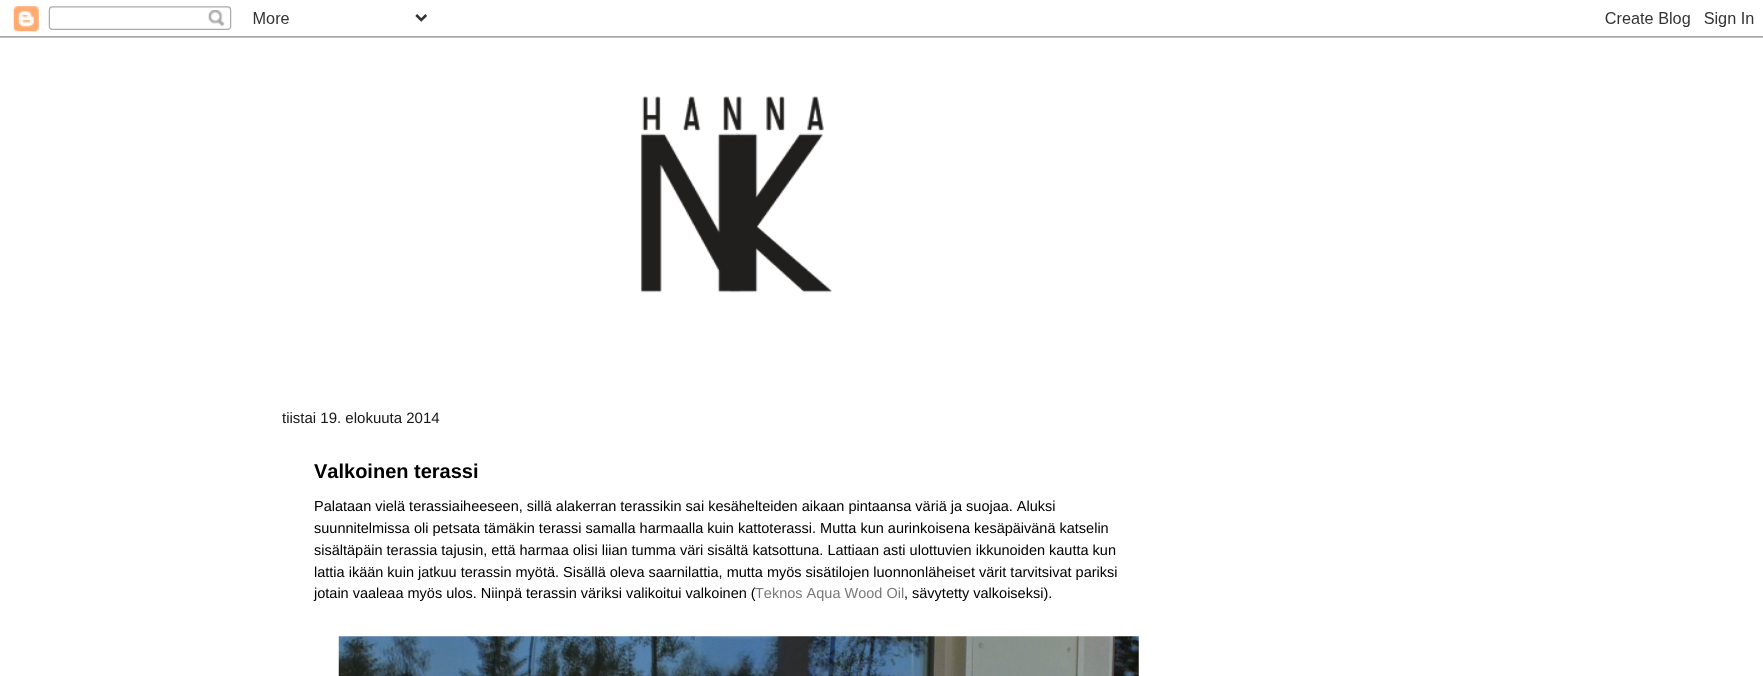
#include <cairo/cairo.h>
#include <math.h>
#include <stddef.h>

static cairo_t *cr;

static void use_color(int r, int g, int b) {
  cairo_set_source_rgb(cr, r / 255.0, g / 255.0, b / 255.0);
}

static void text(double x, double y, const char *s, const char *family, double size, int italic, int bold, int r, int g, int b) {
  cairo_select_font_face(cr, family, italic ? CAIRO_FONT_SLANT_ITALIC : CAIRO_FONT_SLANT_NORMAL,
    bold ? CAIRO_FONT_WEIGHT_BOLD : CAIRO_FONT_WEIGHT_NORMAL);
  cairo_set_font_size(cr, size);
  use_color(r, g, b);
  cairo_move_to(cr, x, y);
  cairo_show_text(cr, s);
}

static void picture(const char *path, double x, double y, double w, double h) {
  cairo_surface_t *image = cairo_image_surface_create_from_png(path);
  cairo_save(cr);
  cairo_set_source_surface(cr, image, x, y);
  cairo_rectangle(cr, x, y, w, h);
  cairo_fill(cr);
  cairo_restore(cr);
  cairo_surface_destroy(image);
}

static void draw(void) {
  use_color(255, 255, 255);
  cairo_paint(cr);
  picture("img_01.png", 0, 6, 1763, 32);
  picture("img_02.png", 640, 96, 192, 197);
  picture("img_03.png", 338, 636, 801, 40);
  text(282, 423, "tiistai 19. elokuuta 2014", "Liberation Sans", 15, 0, 0, 25, 25, 25);
  text(314, 478, "Valkoinen terassi", "Liberation Sans", 20, 0, 1, 0, 0, 0);
  text(314, 511, "Palataan vielä terassiaiheeseen, sillä alakerran terassikin sai kesähelteiden aikaan pintaansa väriä ja suojaa. Aluksi", "Liberation Sans", 14.5, 0, 0, 0, 0, 0);
  text(314, 533, "suunnitelmissa oli petsata tämäkin terassi samalla harmaalla kuin kattoterassi. Mutta kun aurinkoisena kesäpäivänä katselin", "Liberation Sans", 14.5, 0, 0, 0, 0, 0);
  text(314, 555, "sisältäpäin terassia tajusin, että harmaa olisi liian tumma väri sisältä katsottuna. Lattiaan asti ulottuvien ikkunoiden kautta kun", "Liberation Sans", 14.5, 0, 0, 0, 0, 0);
  text(314, 577, "lattia ikään kuin jatkuu terassin myötä. Sisällä oleva saarnilattia, mutta myös sisätilojen luonnonläheiset värit tarvitsivat pariksi", "Liberation Sans", 14.5, 0, 0, 0, 0, 0);
  text(314, 598, "jotain vaaleaa myös ulos. Niinpä terassin väriksi valikoitui valkoinen (", "Liberation Sans", 14.5, 0, 0, 0, 0, 0);
  text(755, 598, "Teknos Aqua Wood Oil", "Liberation Sans", 14.5, 0, 0, 119, 119, 119);
  text(904, 598, ", sävytetty valkoiseksi).", "Liberation Sans", 14.5, 0, 0, 0, 0, 0);
}

int main(void) {
  cairo_surface_t *surface = cairo_image_surface_create(CAIRO_FORMAT_RGB24, 1763, 676);
  cr = cairo_create(surface);
  cairo_font_options_t *options = cairo_font_options_create();
  cairo_font_options_set_hint_metrics(options, CAIRO_HINT_METRICS_OFF);
  cairo_font_options_set_hint_style(options, CAIRO_HINT_STYLE_NONE);
  cairo_set_font_options(cr, options);
  cairo_set_miter_limit(cr, 4);
  draw();
  cairo_surface_write_to_png(surface, "out.png");
  cairo_font_options_destroy(options);
  cairo_destroy(cr);
  cairo_surface_destroy(surface);
  return 0;
}
